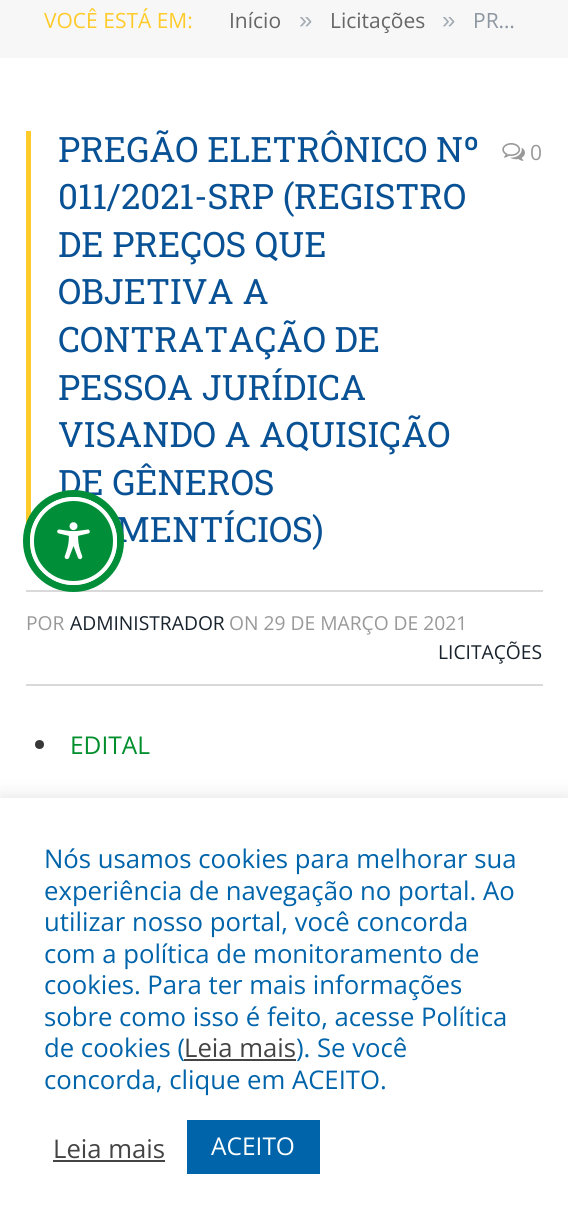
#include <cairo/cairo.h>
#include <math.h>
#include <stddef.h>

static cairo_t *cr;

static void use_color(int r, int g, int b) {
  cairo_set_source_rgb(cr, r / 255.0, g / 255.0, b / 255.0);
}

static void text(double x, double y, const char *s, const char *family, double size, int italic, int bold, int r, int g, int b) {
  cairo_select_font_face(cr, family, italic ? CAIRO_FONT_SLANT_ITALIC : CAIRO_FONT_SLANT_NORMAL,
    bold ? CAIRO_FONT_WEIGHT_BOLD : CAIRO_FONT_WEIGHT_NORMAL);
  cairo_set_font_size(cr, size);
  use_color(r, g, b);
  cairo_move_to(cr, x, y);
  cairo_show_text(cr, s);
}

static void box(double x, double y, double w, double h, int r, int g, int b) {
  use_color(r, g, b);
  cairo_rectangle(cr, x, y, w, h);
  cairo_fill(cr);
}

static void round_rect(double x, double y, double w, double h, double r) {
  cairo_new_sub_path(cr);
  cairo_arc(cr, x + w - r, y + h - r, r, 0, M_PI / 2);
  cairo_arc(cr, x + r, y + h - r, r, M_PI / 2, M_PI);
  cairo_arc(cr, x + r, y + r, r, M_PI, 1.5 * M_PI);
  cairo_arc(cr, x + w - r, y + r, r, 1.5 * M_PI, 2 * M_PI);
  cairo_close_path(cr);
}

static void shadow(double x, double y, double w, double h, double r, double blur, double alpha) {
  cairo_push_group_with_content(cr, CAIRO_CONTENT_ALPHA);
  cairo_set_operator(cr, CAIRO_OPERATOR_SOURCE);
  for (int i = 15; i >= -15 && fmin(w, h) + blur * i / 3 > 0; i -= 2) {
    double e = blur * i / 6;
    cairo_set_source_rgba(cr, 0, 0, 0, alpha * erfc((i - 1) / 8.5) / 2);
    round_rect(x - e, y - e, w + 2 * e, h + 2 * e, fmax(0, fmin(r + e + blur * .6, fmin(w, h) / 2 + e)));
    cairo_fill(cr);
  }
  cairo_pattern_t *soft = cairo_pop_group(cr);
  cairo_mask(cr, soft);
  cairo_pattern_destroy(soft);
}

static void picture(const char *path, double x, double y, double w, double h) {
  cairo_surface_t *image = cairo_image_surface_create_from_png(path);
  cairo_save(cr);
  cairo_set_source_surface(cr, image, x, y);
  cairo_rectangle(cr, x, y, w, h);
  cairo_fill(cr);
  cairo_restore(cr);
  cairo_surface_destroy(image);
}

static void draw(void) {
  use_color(255, 255, 255);
  cairo_paint(cr);
  box(0, 0, 568, 58, 247, 247, 247);
  box(26, 131, 5, 419, 255, 203, 42);
  picture("img_01.png", 502, 143, 23, 18);
  box(26, 590, 517, 2, 217, 217, 217);
  box(26, 684, 517, 2, 217, 217, 217);
  use_color(56, 56, 56);
  cairo_arc(cr, 39.5, 744.5, 4.5, 0, 2 * M_PI);
  cairo_fill(cr);
  use_color(172, 171, 171);
  shadow(0, 796, 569, 429, 0, 9, 0.3);
  box(0, 798, 568, 428, 255, 255, 255);
  box(184, 1059, 112, 2, 68, 68, 68);
  box(53, 1160, 112, 2, 68, 68, 68);
  box(187, 1120, 133, 54, 0, 100, 171);
  text(44, 28, "VOCÊ ESTÁ EM:", "Open Sans", 21, 0, 0, 255, 203, 42);
  text(229, 28, "Início", "Open Sans", 21, 0, 0, 102, 102, 102);
  text(299, 28, "»", "Liberation Sans", 24, 0, 0, 162, 170, 178);
  text(330, 28, "Licitações", "Open Sans", 21, 0, 0, 102, 102, 102);
  text(442, 28, "»", "Liberation Sans", 24, 0, 0, 162, 170, 178);
  text(473, 28, "PR…", "Open Sans", 21, 0, 0, 141, 151, 161);
  text(58, 162, "PREGÃO ELETRÔNICO Nº", "Roboto Slab", 35, 0, 0, 8, 81, 149);
  text(58, 209, "011/2021-SRP (REGISTRO", "Roboto Slab", 35, 0, 0, 8, 81, 149);
  text(58, 257, "DE PREÇOS QUE", "Roboto Slab", 35, 0, 0, 8, 81, 149);
  text(58, 304, "OBJETIVA A", "Roboto Slab", 35, 0, 0, 8, 81, 149);
  text(58, 352, "CONTRATAÇÃO DE", "Roboto Slab", 35, 0, 0, 8, 81, 149);
  text(58, 400, "PESSOA JURÍDICA", "Roboto Slab", 35, 0, 0, 8, 81, 149);
  text(58, 447, "VISANDO A AQUISIÇÃO", "Roboto Slab", 35, 0, 0, 8, 81, 149);
  text(58, 495, "DE GÊNEROS", "Roboto Slab", 35, 0, 0, 8, 81, 149);
  text(116, 542, "MENTÍCIOS)", "Roboto Slab", 35, 0, 0, 8, 81, 149);
  text(530, 160, "0", "Open Sans", 21, 0, 0, 153, 153, 153);
  text(26, 630, "POR", "Open Sans", 19.25, 0, 0, 153, 153, 153);
  text(70, 630, "ADMINISTRADOR", "Open Sans", 19.25, 0, 0, 25, 35, 45);
  text(229, 630, "ON 29 DE MARÇO DE 2021", "Open Sans", 19.25, 0, 0, 153, 153, 153);
  text(438, 659, "LICITAÇÕES", "Open Sans", 19.25, 0, 0, 25, 35, 45);
  text(70, 754, "EDITAL", "Open Sans", 24.5, 0, 0, 0, 143, 44);
  round_rect(26.5, 493.5, 94, 95, 47);
  use_color(0, 142, 57);
  cairo_set_line_width(cr, 7);
  cairo_stroke(cr);
  round_rect(32, 499, 83, 84, 41.5);
  cairo_fill_preserve(cr);
  use_color(255, 255, 255);
  cairo_set_line_width(cr, 4);
  cairo_stroke(cr);
  picture("img_02.png", 57, 522, 33, 38);
  text(44, 868, "Nós usamos cookies para melhorar sua", "Open Sans", 25.7, 0, 0, 0, 100, 171);
  text(44, 900, "experiência de navegação no portal. Ao", "Open Sans", 25.7, 0, 0, 0, 100, 171);
  text(44, 931, "utilizar nosso portal, você concorda", "Open Sans", 25.7, 0, 0, 0, 100, 171);
  text(44, 963, "com a política de monitoramento de", "Open Sans", 25.7, 0, 0, 0, 100, 171);
  text(44, 994, "cookies. Para ter mais informações", "Open Sans", 25.7, 0, 0, 0, 100, 171);
  text(44, 1026, "sobre como isso é feito, acesse Política", "Open Sans", 25.7, 0, 0, 0, 100, 171);
  text(44, 1057, "de cookies (", "Open Sans", 25.7, 0, 0, 0, 100, 171);
  text(184, 1057, "Leia mais", "Open Sans", 25.7, 0, 0, 68, 68, 68);
  text(296, 1057, "). Se você", "Open Sans", 25.7, 0, 0, 0, 100, 171);
  text(44, 1089, "concorda, clique em ACEITO.", "Open Sans", 25.7, 0, 0, 0, 100, 171);
  text(53, 1158, "Leia mais", "Open Sans", 25.7, 0, 0, 68, 68, 68);
  text(211, 1155, "ACEITO", "Open Sans", 24.5, 0, 0, 255, 255, 255);
}

int main(void) {
  cairo_surface_t *surface = cairo_image_surface_create(CAIRO_FORMAT_RGB24, 568, 1226);
  cr = cairo_create(surface);
  cairo_font_options_t *options = cairo_font_options_create();
  cairo_font_options_set_hint_metrics(options, CAIRO_HINT_METRICS_OFF);
  cairo_font_options_set_hint_style(options, CAIRO_HINT_STYLE_NONE);
  cairo_set_font_options(cr, options);
  cairo_set_miter_limit(cr, 4);
  draw();
  cairo_surface_write_to_png(surface, "out.png");
  cairo_font_options_destroy(options);
  cairo_destroy(cr);
  cairo_surface_destroy(surface);
  return 0;
}
